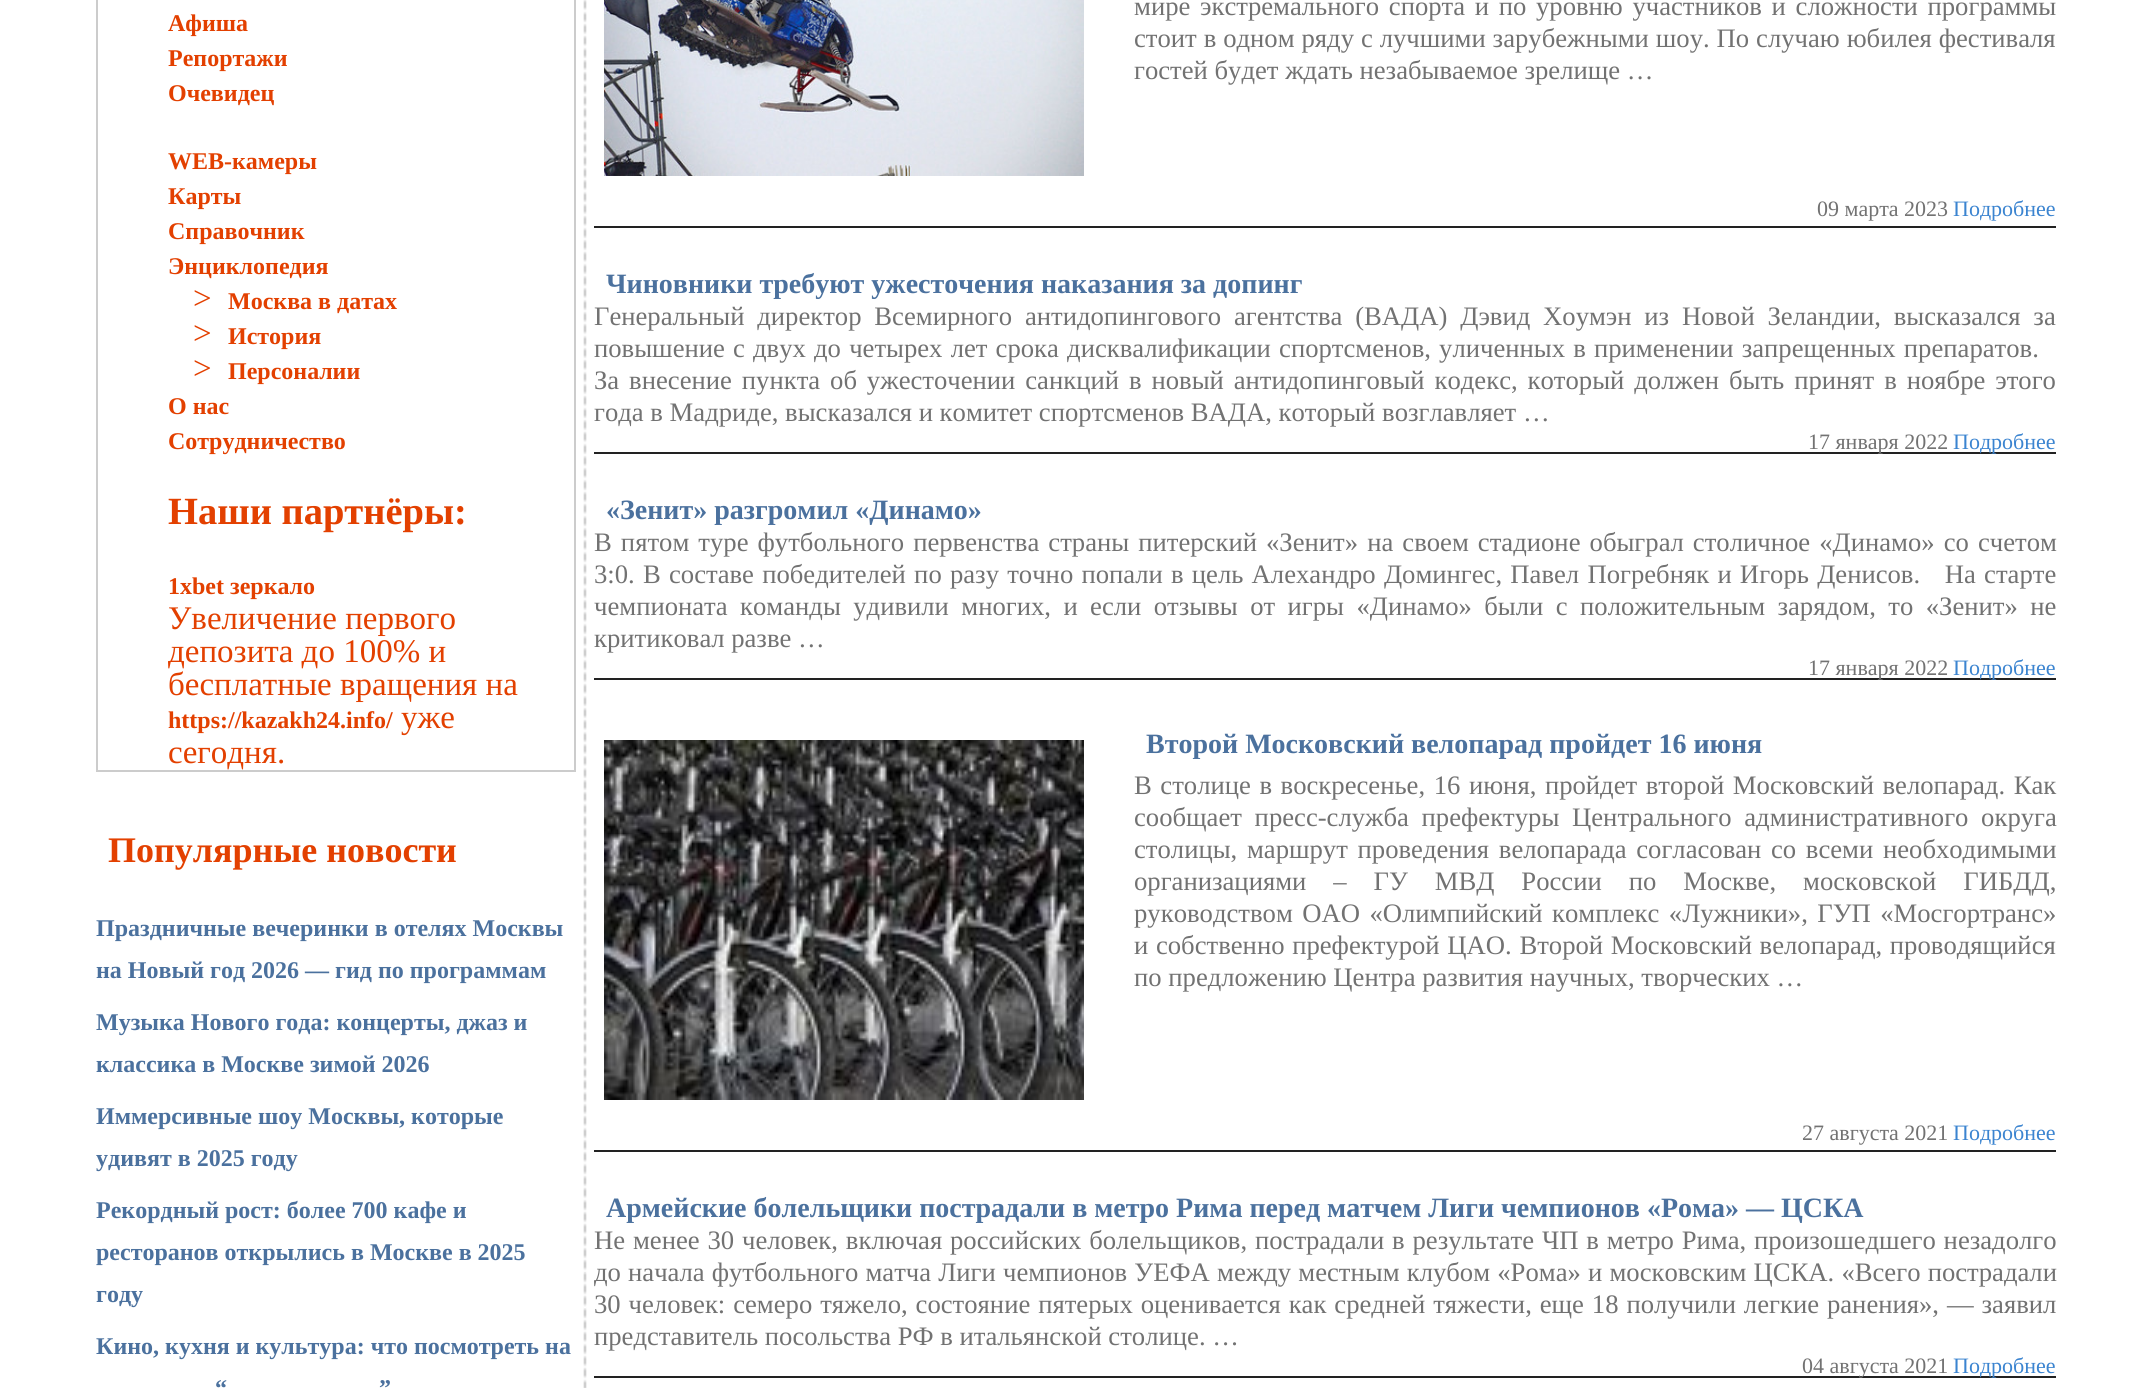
#include <cairo/cairo.h>
#include <math.h>
#include <stddef.h>

static cairo_t *cr;

static void use_color(int r, int g, int b) {
  cairo_set_source_rgb(cr, r / 255.0, g / 255.0, b / 255.0);
}

static void text(double x, double y, const char *s, const char *family, double size, int italic, int bold, int r, int g, int b) {
  cairo_select_font_face(cr, family, italic ? CAIRO_FONT_SLANT_ITALIC : CAIRO_FONT_SLANT_NORMAL,
    bold ? CAIRO_FONT_WEIGHT_BOLD : CAIRO_FONT_WEIGHT_NORMAL);
  cairo_set_font_size(cr, size);
  use_color(r, g, b);
  cairo_move_to(cr, x, y);
  cairo_show_text(cr, s);
}

static void spaced_text(double x, double y, const char *s, double letter, double word) {
  cairo_move_to(cr, x, y);
  while (*s) {
    char ch[5] = {0};
    int n = 0;
    do ch[n++] = *s++; while ((*s & 0xC0) == 0x80);
    cairo_show_text(cr, ch);
    cairo_rel_move_to(cr, letter + word * (*ch == ' '), 0);
  }
}

static void box(double x, double y, double w, double h, int r, int g, int b) {
  use_color(r, g, b);
  cairo_rectangle(cr, x, y, w, h);
  cairo_fill(cr);
}

static void picture(const char *path, double x, double y, double w, double h) {
  cairo_surface_t *image = cairo_image_surface_create_from_png(path);
  cairo_save(cr);
  cairo_set_source_surface(cr, image, x, y);
  cairo_rectangle(cr, x, y, w, h);
  cairo_fill(cr);
  cairo_restore(cr);
  cairo_surface_destroy(image);
}

static void draw(void) {
  use_color(255, 255, 255);
  cairo_paint(cr);
  cairo_rectangle(cr, 97, -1, 478, 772);
  use_color(204, 204, 204);
  cairo_stroke(cr);
  picture("img_01.png", 583, 0, 4, 1388);
  picture("img_02.png", 584, 1272, 2, 36);
  box(594, 226, 1462, 2, 34, 34, 34);
  picture("img_03.png", 604, 0, 480, 176);
  box(594, 452, 1462, 2, 34, 34, 34);
  box(594, 678, 1462, 2, 34, 34, 34);
  box(594, 1150, 1462, 2, 34, 34, 34);
  picture("img_04.png", 604, 740, 480, 360);
  box(594, 1376, 1462, 2, 34, 34, 34);
  text(168, 31, "Афиша", "Liberation Serif", 24, 0, 1, 227, 64, 0);
  text(168, 66, "Репортажи", "Liberation Serif", 24, 0, 1, 227, 64, 0);
  text(168, 101, "Очевидец", "Liberation Serif", 24, 0, 1, 227, 64, 0);
  text(168, 169, "WEB-камеры", "Liberation Serif", 24, 0, 1, 227, 64, 0);
  text(168, 204, "Карты", "Liberation Serif", 24, 0, 1, 227, 64, 0);
  text(168, 239, "Справочник", "Liberation Serif", 24, 0, 1, 227, 64, 0);
  text(168, 274, "Энциклопедия", "Liberation Serif", 24, 0, 1, 227, 64, 0);
  text(193, 309, ">", "Liberation Serif", 33, 0, 0, 227, 64, 0);
  text(228, 309, "Москва в датах", "Liberation Serif", 24, 0, 1, 227, 64, 0);
  text(193, 344, ">", "Liberation Serif", 33, 0, 0, 227, 64, 0);
  text(228, 344, "История", "Liberation Serif", 24, 0, 1, 227, 64, 0);
  text(193, 379, ">", "Liberation Serif", 33, 0, 0, 227, 64, 0);
  text(228, 379, "Персоналии", "Liberation Serif", 24, 0, 1, 227, 64, 0);
  text(168, 414, "О нас", "Liberation Serif", 24, 0, 1, 227, 64, 0);
  text(168, 449, "Сотрудничество", "Liberation Serif", 24, 0, 1, 227, 64, 0);
  text(168, 524, "Наши партнёры:", "Liberation Serif", 38.5, 0, 1, 227, 64, 0);
  text(168, 594, "1xbet зеркало", "Liberation Serif", 24, 0, 1, 227, 64, 0);
  text(168, 629, "Увеличение первого", "Liberation Serif", 33, 0, 0, 227, 64, 0);
  text(168, 662, "депозита до 100% и", "Liberation Serif", 33, 0, 0, 227, 64, 0);
  text(168, 695, "бесплатные вращения на", "Liberation Serif", 33, 0, 0, 227, 64, 0);
  text(168, 728, "https://kazakh24.info/", "Liberation Serif", 24, 0, 1, 227, 64, 0);
  text(401, 728, "уже", "Liberation Serif", 33, 0, 0, 227, 64, 0);
  text(168, 763, "сегодня.", "Liberation Serif", 33, 0, 0, 227, 64, 0);
  text(108, 862, "Популярные новости", "Liberation Serif", 36, 0, 1, 227, 64, 0);
  text(96, 936, "Праздничные вечеринки в отелях Москвы", "Liberation Serif", 24, 0, 1, 75, 113, 158);
  text(96, 978, "на Новый год 2026 — гид по программам", "Liberation Serif", 24, 0, 1, 75, 113, 158);
  text(96, 1030, "Музыка Нового года: концерты, джаз и", "Liberation Serif", 24, 0, 1, 75, 113, 158);
  text(96, 1072, "классика в Москве зимой 2026", "Liberation Serif", 24, 0, 1, 75, 113, 158);
  text(96, 1124, "Иммерсивные шоу Москвы, которые", "Liberation Serif", 24, 0, 1, 75, 113, 158);
  text(96, 1166, "удивят в 2025 году", "Liberation Serif", 24, 0, 1, 75, 113, 158);
  text(96, 1218, "Рекордный рост: более 700 кафе и", "Liberation Serif", 24, 0, 1, 75, 113, 158);
  text(96, 1260, "ресторанов открылись в Москве в 2025", "Liberation Serif", 24, 0, 1, 75, 113, 158);
  text(96, 1302, "году", "Liberation Serif", 24, 0, 1, 75, 113, 158);
  text(96, 1354, "Кино, кухня и культура: что посмотреть на", "Liberation Serif", 24, 0, 1, 75, 113, 158);
  text(215, 1396, "“", "Liberation Serif", 24, 0, 1, 75, 113, 158);
  text(379, 1396, "”", "Liberation Serif", 24, 0, 1, 75, 113, 158);
  cairo_select_font_face(cr, "Liberation Serif", CAIRO_FONT_SLANT_NORMAL, CAIRO_FONT_WEIGHT_NORMAL);
  cairo_set_font_size(cr, 26.67);
  use_color(114, 114, 114);
  spaced_text(1134, 15, "мире экстремального спорта и по уровню участников и сложности программы", 0, 3);
  spaced_text(1134, 47, "стоит в одном ряду с лучшими зарубежными шоу. По случаю юбилея фестиваля", 0, 0.25);
  text(1134, 79, "гостей будет ждать незабываемое зрелище …", "Liberation Serif", 26.67, 0, 0, 114, 114, 114);
  text(1817, 216, "09 марта 2023", "Liberation Serif", 22, 0, 0, 114, 114, 114);
  text(1953, 216, "Подробнее", "Liberation Serif", 22, 0, 0, 59, 132, 208);
  text(606, 293, "Чиновники требуют ужесточения наказания за допинг", "Liberation Serif", 28, 0, 1, 75, 113, 158);
  cairo_select_font_face(cr, "Liberation Serif", CAIRO_FONT_SLANT_NORMAL, CAIRO_FONT_WEIGHT_NORMAL);
  cairo_set_font_size(cr, 26.67);
  use_color(114, 114, 114);
  spaced_text(594, 325, "Генеральный директор Всемирного антидопингового агентства (ВАДА) Дэвид Хоумэн из Новой Зеландии, высказался за", 0, 6.1);
  spaced_text(594, 357, "повышение с двух до четырех лет срока дисквалификации спортсменов, уличенных в применении запрещенных препаратов.", 0, 1.5);
  spaced_text(594, 389, "За внесение пункта об ужесточении санкций в новый антидопинговый кодекс, который должен быть принят в ноябре этого", 0, 3.25);
  text(594, 421, "года в Мадриде, высказался и комитет спортсменов ВАДА, который возглавляет …", "Liberation Serif", 26.67, 0, 0, 114, 114, 114);
  text(1808, 449, "17 января 2022", "Liberation Serif", 22, 0, 0, 114, 114, 114);
  text(1953, 449, "Подробнее", "Liberation Serif", 22, 0, 0, 59, 132, 208);
  text(606, 519, "«Зенит» разгромил «Динамо»", "Liberation Serif", 28, 0, 1, 75, 113, 158);
  cairo_select_font_face(cr, "Liberation Serif", CAIRO_FONT_SLANT_NORMAL, CAIRO_FONT_WEIGHT_NORMAL);
  cairo_set_font_size(cr, 26.67);
  use_color(114, 114, 114);
  spaced_text(594, 551, "В пятом туре футбольного первенства страны питерский «Зенит» на своем стадионе обыграл столичное «Динамо» со счетом", 0, 2.4);
  spaced_text(594, 583, "3:0. В составе победителей по разу точно попали в цель Алехандро Домингес, Павел Погребняк и Игорь Денисов.   На старте", 0, 1.55);
  spaced_text(594, 615, "чемпионата команды удивили многих, и если отзывы от игры «Динамо» были с положительным зарядом, то «Зенит» не", 0, 5.75);
  text(594, 647, "критиковал разве …", "Liberation Serif", 26.67, 0, 0, 114, 114, 114);
  text(1808, 675, "17 января 2022", "Liberation Serif", 22, 0, 0, 114, 114, 114);
  text(1953, 675, "Подробнее", "Liberation Serif", 22, 0, 0, 59, 132, 208);
  text(1146, 753, "Второй Московский велопарад пройдет 16 июня", "Liberation Serif", 28, 0, 1, 75, 113, 158);
  cairo_select_font_face(cr, "Liberation Serif", CAIRO_FONT_SLANT_NORMAL, CAIRO_FONT_WEIGHT_NORMAL);
  cairo_set_font_size(cr, 26.67);
  use_color(114, 114, 114);
  spaced_text(1134, 794, "В столице в воскресенье, 16 июня, пройдет второй Московский велопарад. Как", 0, 1.9);
  spaced_text(1134, 826, "сообщает пресс-служба префектуры Центрального административного округа", 0, 6);
  spaced_text(1134, 858, "столицы, маршрут проведения велопарада согласован со всеми необходимыми", 0, 3);
  spaced_text(1134, 890, "организациями – ГУ МВД России по Москве, московской ГИБДД,", 0, 20.25);
  spaced_text(1134, 922, "руководством ОАО «Олимпийский комплекс «Лужники», ГУП «Мосгортранс»", 0, 2.75);
  spaced_text(1134, 954, "и собственно префектурой ЦАО. Второй Московский велопарад, проводящийся", 0, 1);
  text(1134, 986, "по предложению Центра развития научных, творческих …", "Liberation Serif", 26.67, 0, 0, 114, 114, 114);
  text(1802, 1140, "27 августа 2021", "Liberation Serif", 22, 0, 0, 114, 114, 114);
  text(1953, 1140, "Подробнее", "Liberation Serif", 22, 0, 0, 59, 132, 208);
  text(606, 1217, "Армейские болельщики пострадали в метро Рима перед матчем Лиги чемпионов «Рома» — ЦСКА", "Liberation Serif", 28, 0, 1, 75, 113, 158);
  cairo_select_font_face(cr, "Liberation Serif", CAIRO_FONT_SLANT_NORMAL, CAIRO_FONT_WEIGHT_NORMAL);
  cairo_set_font_size(cr, 26.67);
  use_color(114, 114, 114);
  spaced_text(594, 1249, "Не менее 30 человек, включая российских болельщиков, пострадали в результате ЧП в метро Рима, произошедшего незадолго", 0, 1.2);
  spaced_text(594, 1281, "до начала футбольного матча Лиги чемпионов УЕФА между местным клубом «Рома» и московским ЦСКА. «Всего пострадали", 0, 0.5);
  spaced_text(594, 1313, "30 человек: семеро тяжело, состояние пятерых оценивается как средней тяжести, еще 18 получили легкие ранения», — заявил", 0, 1.25);
  text(594, 1345, "представитель посольства РФ в итальянской столице. …", "Liberation Serif", 26.67, 0, 0, 114, 114, 114);
  text(1802, 1373, "04 августа 2021", "Liberation Serif", 22, 0, 0, 114, 114, 114);
  text(1953, 1373, "Подробнее", "Liberation Serif", 22, 0, 0, 59, 132, 208);
}

int main(void) {
  cairo_surface_t *surface = cairo_image_surface_create(CAIRO_FORMAT_RGB24, 2152, 1388);
  cr = cairo_create(surface);
  cairo_font_options_t *options = cairo_font_options_create();
  cairo_font_options_set_hint_metrics(options, CAIRO_HINT_METRICS_OFF);
  cairo_font_options_set_hint_style(options, CAIRO_HINT_STYLE_NONE);
  cairo_set_font_options(cr, options);
  cairo_set_miter_limit(cr, 4);
  draw();
  cairo_surface_write_to_png(surface, "out.png");
  cairo_font_options_destroy(options);
  cairo_destroy(cr);
  cairo_surface_destroy(surface);
  return 0;
}
